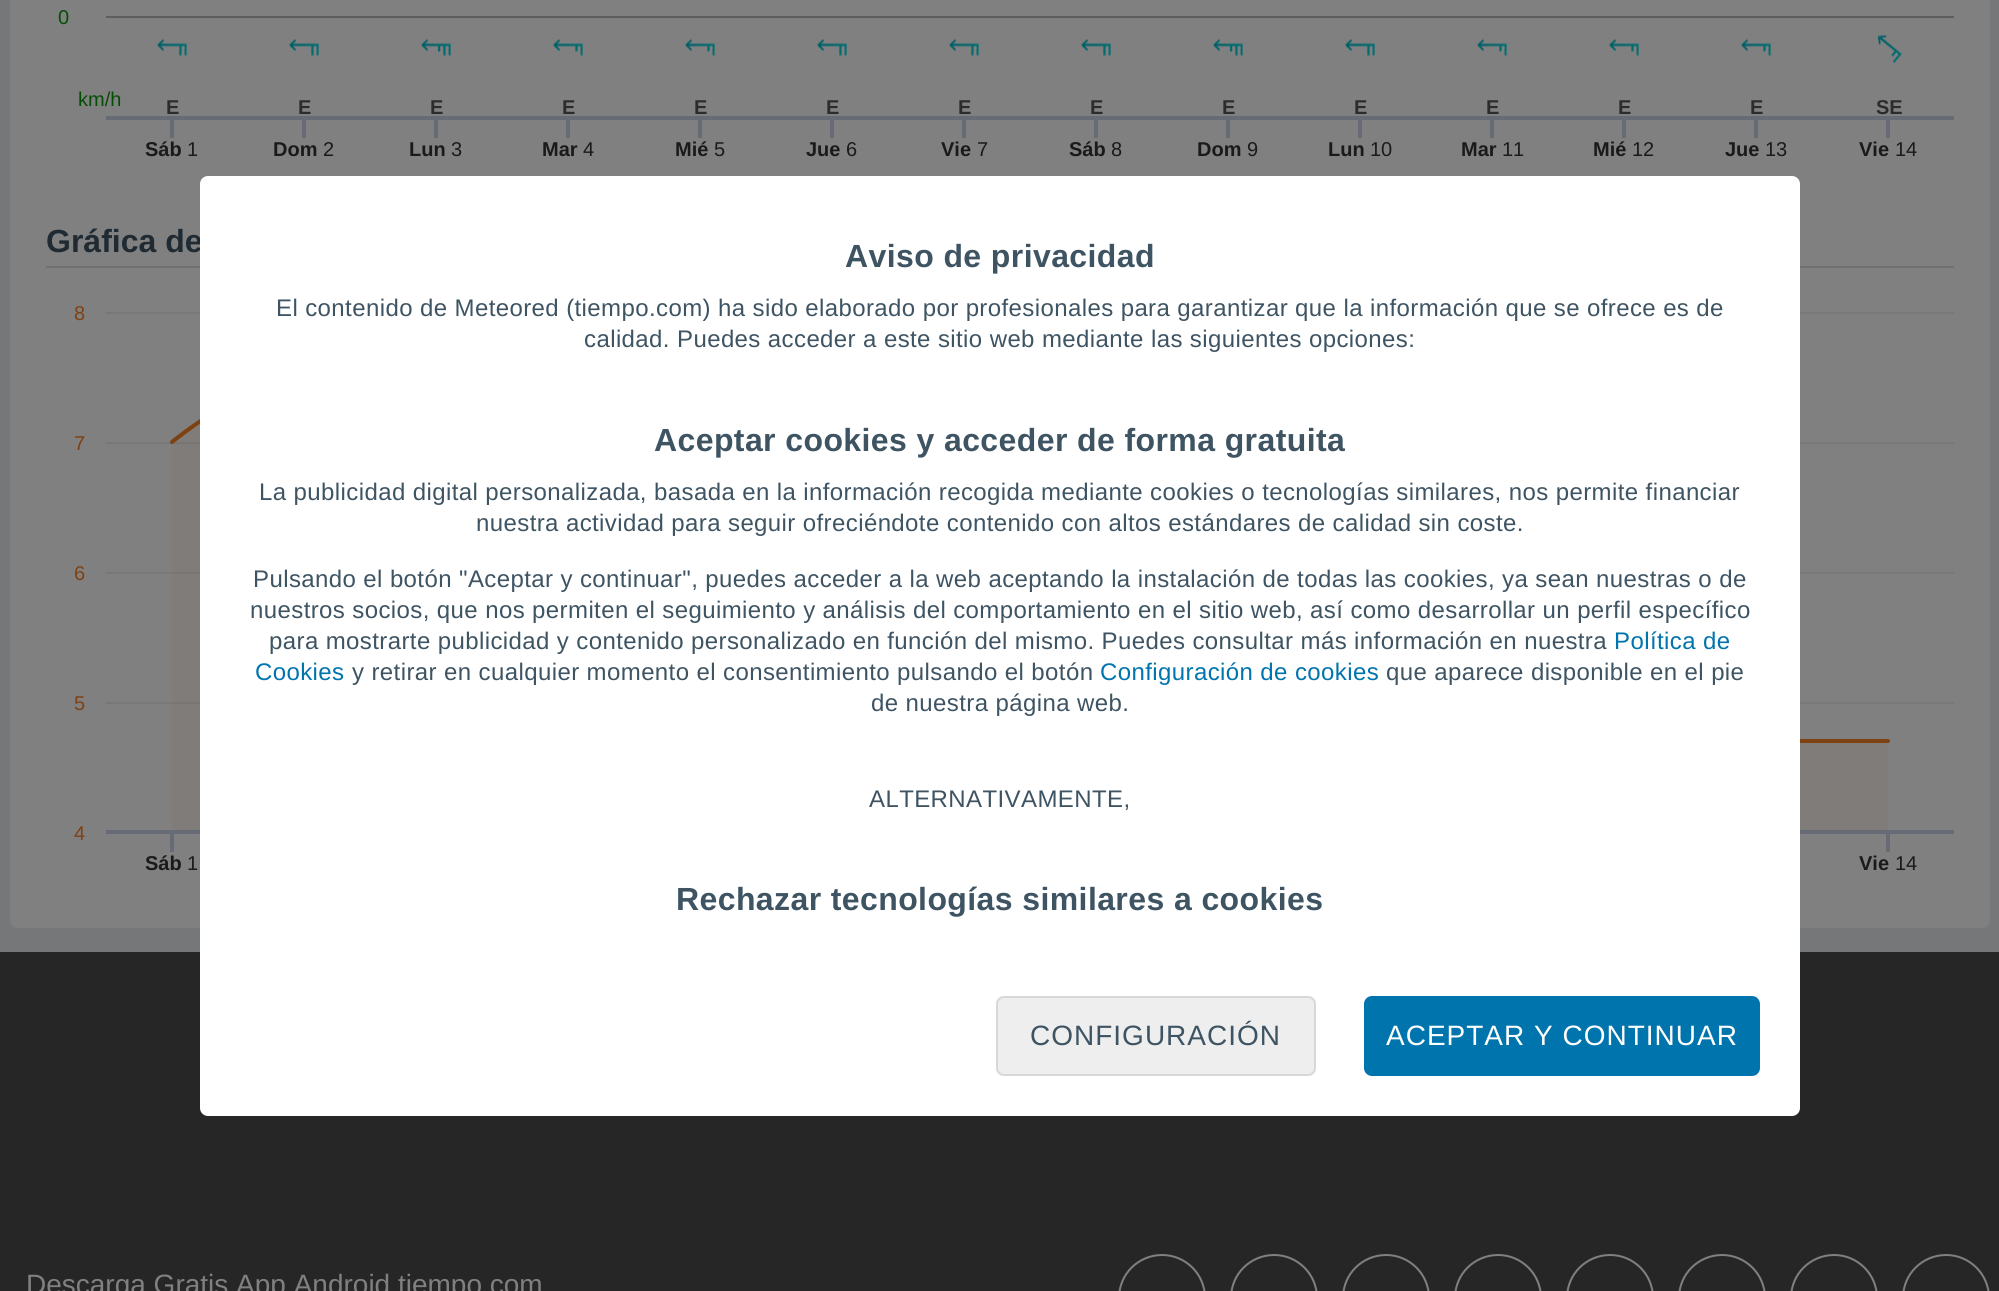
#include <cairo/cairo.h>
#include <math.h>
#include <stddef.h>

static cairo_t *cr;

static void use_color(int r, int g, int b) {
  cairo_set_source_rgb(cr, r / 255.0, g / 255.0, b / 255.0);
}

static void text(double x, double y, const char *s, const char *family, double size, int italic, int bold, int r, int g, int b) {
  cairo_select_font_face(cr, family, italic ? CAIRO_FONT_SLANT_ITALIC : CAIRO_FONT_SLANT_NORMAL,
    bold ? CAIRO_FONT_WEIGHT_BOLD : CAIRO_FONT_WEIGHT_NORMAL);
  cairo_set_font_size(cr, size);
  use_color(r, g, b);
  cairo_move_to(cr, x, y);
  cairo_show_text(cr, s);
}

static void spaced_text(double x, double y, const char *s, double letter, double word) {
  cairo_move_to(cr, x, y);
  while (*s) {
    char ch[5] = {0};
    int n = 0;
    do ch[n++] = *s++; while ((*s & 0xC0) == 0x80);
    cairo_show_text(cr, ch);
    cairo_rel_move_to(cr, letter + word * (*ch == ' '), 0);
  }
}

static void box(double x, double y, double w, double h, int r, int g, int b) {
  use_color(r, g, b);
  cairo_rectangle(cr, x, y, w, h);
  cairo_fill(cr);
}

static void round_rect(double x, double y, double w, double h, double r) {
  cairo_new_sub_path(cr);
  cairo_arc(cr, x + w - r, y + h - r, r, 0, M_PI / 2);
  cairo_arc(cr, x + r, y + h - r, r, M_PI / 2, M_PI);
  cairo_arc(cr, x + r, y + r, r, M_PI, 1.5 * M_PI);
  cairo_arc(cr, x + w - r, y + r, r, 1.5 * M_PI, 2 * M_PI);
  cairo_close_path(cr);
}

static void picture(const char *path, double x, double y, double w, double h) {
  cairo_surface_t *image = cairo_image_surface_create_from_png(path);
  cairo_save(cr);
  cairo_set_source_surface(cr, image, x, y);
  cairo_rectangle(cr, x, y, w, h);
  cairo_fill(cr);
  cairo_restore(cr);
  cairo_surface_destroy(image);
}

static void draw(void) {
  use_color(118, 119, 120);
  cairo_paint(cr);
  use_color(128, 128, 128);
  round_rect(10, -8, 1980, 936, 8);
  cairo_fill(cr);
  picture("img_01.png", 106, 16, 1848, 122);
  box(46, 266, 1908, 2, 110, 112, 114);
  picture("img_02.png", 106, 312, 1848, 540);
  box(0, 952, 1999, 339, 38, 38, 39);
  round_rect(1119, 1255, 86, 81, 43);
  use_color(128, 128, 128);
  cairo_stroke(cr);
  round_rect(1231, 1255, 86, 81, 43);
  cairo_stroke(cr);
  round_rect(1343, 1255, 86, 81, 43);
  cairo_stroke(cr);
  round_rect(1455, 1255, 86, 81, 43);
  cairo_stroke(cr);
  round_rect(1567, 1255, 86, 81, 43);
  cairo_stroke(cr);
  round_rect(1679, 1255, 86, 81, 43);
  cairo_stroke(cr);
  round_rect(1791, 1255, 86, 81, 43);
  cairo_stroke(cr);
  round_rect(1903, 1255, 86, 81, 43);
  cairo_stroke(cr);
  text(58, 24, "0", "Liberation Sans", 20, 0, 0, 4, 78, 4);
  text(78, 106, "km/h", "Liberation Sans", 20, 0, 0, 4, 78, 4);
  text(166, 114, "E", "Liberation Sans", 20, 0, 1, 44, 44, 44);
  text(298, 114, "E", "Liberation Sans", 20, 0, 1, 44, 44, 44);
  text(430, 114, "E", "Liberation Sans", 20, 0, 1, 44, 44, 44);
  text(562, 114, "E", "Liberation Sans", 20, 0, 1, 44, 44, 44);
  text(694, 114, "E", "Liberation Sans", 20, 0, 1, 44, 44, 44);
  text(826, 114, "E", "Liberation Sans", 20, 0, 1, 44, 44, 44);
  text(958, 114, "E", "Liberation Sans", 20, 0, 1, 44, 44, 44);
  text(1090, 114, "E", "Liberation Sans", 20, 0, 1, 44, 44, 44);
  text(1222, 114, "E", "Liberation Sans", 20, 0, 1, 44, 44, 44);
  text(1354, 114, "E", "Liberation Sans", 20, 0, 1, 44, 44, 44);
  text(1486, 114, "E", "Liberation Sans", 20, 0, 1, 44, 44, 44);
  text(1618, 114, "E", "Liberation Sans", 20, 0, 1, 44, 44, 44);
  text(1750, 114, "E", "Liberation Sans", 20, 0, 1, 44, 44, 44);
  text(1876, 114, "SE", "Liberation Sans", 20, 0, 1, 44, 44, 44);
  text(145, 156, "Sáb", "Liberation Sans", 20, 0, 1, 26, 26, 26);
  text(187, 156, "1", "Liberation Sans", 20, 0, 0, 26, 26, 26);
  text(273, 156, "Dom", "Liberation Sans", 20, 0, 1, 26, 26, 26);
  text(323, 156, "2", "Liberation Sans", 20, 0, 0, 26, 26, 26);
  text(409, 156, "Lun", "Liberation Sans", 20, 0, 1, 26, 26, 26);
  text(451, 156, "3", "Liberation Sans", 20, 0, 0, 26, 26, 26);
  text(542, 156, "Mar", "Liberation Sans", 20, 0, 1, 26, 26, 26);
  text(583, 156, "4", "Liberation Sans", 20, 0, 0, 26, 26, 26);
  text(675, 156, "Mié", "Liberation Sans", 20, 0, 1, 26, 26, 26);
  text(714, 156, "5", "Liberation Sans", 20, 0, 0, 26, 26, 26);
  text(806, 156, "Jue", "Liberation Sans", 20, 0, 1, 26, 26, 26);
  text(846, 156, "6", "Liberation Sans", 20, 0, 0, 26, 26, 26);
  text(941, 156, "Vie", "Liberation Sans", 20, 0, 1, 26, 26, 26);
  text(977, 156, "7", "Liberation Sans", 20, 0, 0, 26, 26, 26);
  text(1069, 156, "Sáb", "Liberation Sans", 20, 0, 1, 26, 26, 26);
  text(1111, 156, "8", "Liberation Sans", 20, 0, 0, 26, 26, 26);
  text(1197, 156, "Dom", "Liberation Sans", 20, 0, 1, 26, 26, 26);
  text(1247, 156, "9", "Liberation Sans", 20, 0, 0, 26, 26, 26);
  text(1328, 156, "Lun", "Liberation Sans", 20, 0, 1, 26, 26, 26);
  text(1370, 156, "10", "Liberation Sans", 20, 0, 0, 26, 26, 26);
  text(1461, 156, "Mar", "Liberation Sans", 20, 0, 1, 26, 26, 26);
  text(1502, 156, "11", "Liberation Sans", 20, 0, 0, 26, 26, 26);
  text(1593, 156, "Mié", "Liberation Sans", 20, 0, 1, 26, 26, 26);
  text(1632, 156, "12", "Liberation Sans", 20, 0, 0, 26, 26, 26);
  text(1725, 156, "Jue", "Liberation Sans", 20, 0, 1, 26, 26, 26);
  text(1765, 156, "13", "Liberation Sans", 20, 0, 0, 26, 26, 26);
  text(1859, 156, "Vie", "Liberation Sans", 20, 0, 1, 26, 26, 26);
  text(1895, 156, "14", "Liberation Sans", 20, 0, 0, 26, 26, 26);
  text(46, 252, "Gráfica de", "Liberation Sans", 32, 0, 1, 31, 42, 50);
  text(74, 320, "8", "Liberation Sans", 20, 0, 0, 126, 65, 19);
  text(74, 450, "7", "Liberation Sans", 20, 0, 0, 126, 65, 19);
  text(74, 580, "6", "Liberation Sans", 20, 0, 0, 126, 65, 19);
  text(74, 710, "5", "Liberation Sans", 20, 0, 0, 126, 65, 19);
  text(74, 840, "4", "Liberation Sans", 20, 0, 0, 126, 65, 19);
  text(145, 870, "Sáb", "Liberation Sans", 20, 0, 1, 26, 26, 26);
  text(187, 870, "1", "Liberation Sans", 20, 0, 0, 26, 26, 26);
  text(1859, 870, "Vie", "Liberation Sans", 20, 0, 1, 26, 26, 26);
  text(1895, 870, "14", "Liberation Sans", 20, 0, 0, 26, 26, 26);
  use_color(255, 255, 255);
  round_rect(200, 176, 1600, 940, 8);
  cairo_fill(cr);
  cairo_select_font_face(cr, "Liberation Sans", CAIRO_FONT_SLANT_NORMAL, CAIRO_FONT_WEIGHT_BOLD);
  cairo_set_font_size(cr, 32);
  use_color(62, 84, 99);
  spaced_text(845, 267, "Aviso de privacidad", 0.4, 0);
  cairo_select_font_face(cr, "Liberation Sans", CAIRO_FONT_SLANT_NORMAL, CAIRO_FONT_WEIGHT_NORMAL);
  cairo_set_font_size(cr, 24);
  spaced_text(276, 316, "El contenido de Meteored (tiempo.com) ha sido elaborado por profesionales para garantizar que la información que se ofrece es de", 0.4, 0);
  spaced_text(584, 347, "calidad. Puedes acceder a este sitio web mediante las siguientes opciones:", 0.4, 0);
  cairo_select_font_face(cr, "Liberation Sans", CAIRO_FONT_SLANT_NORMAL, CAIRO_FONT_WEIGHT_BOLD);
  cairo_set_font_size(cr, 32);
  spaced_text(654, 451, "Aceptar cookies y acceder de forma gratuita", 0.4, 0);
  cairo_select_font_face(cr, "Liberation Sans", CAIRO_FONT_SLANT_NORMAL, CAIRO_FONT_WEIGHT_NORMAL);
  cairo_set_font_size(cr, 24);
  spaced_text(259, 500, "La publicidad digital personalizada, basada en la información recogida mediante cookies o tecnologías similares, nos permite financiar", 0.4, 0);
  spaced_text(476, 531, "nuestra actividad para seguir ofreciéndote contenido con altos estándares de calidad sin coste.", 0.4, 0);
  spaced_text(253, 587, "Pulsando el botón \"Aceptar y continuar\", puedes acceder a la web aceptando la instalación de todas las cookies, ya sean nuestras o de", 0.4, 0);
  spaced_text(250, 618, "nuestros socios, que nos permiten el seguimiento y análisis del comportamiento en el sitio web, así como desarrollar un perfil específico", 0.4, 0);
  spaced_text(269, 649, "para mostrarte publicidad y contenido personalizado en función del mismo. Puedes consultar más información en nuestra", 0.4, 0);
  use_color(0, 116, 173);
  spaced_text(1614, 649, "Política de", 0.4, 0);
  spaced_text(255, 680, "Cookies", 0.4, 0);
  use_color(62, 84, 99);
  spaced_text(352, 680, "y retirar en cualquier momento el consentimiento pulsando el botón", 0.4, 0);
  use_color(0, 116, 173);
  spaced_text(1100, 680, "Configuración de cookies", 0.4, 0);
  use_color(62, 84, 99);
  spaced_text(1386, 680, "que aparece disponible en el pie", 0.4, 0);
  spaced_text(871, 711, "de nuestra página web.", 0.4, 0);
  spaced_text(869, 807, "ALTERNATIVAMENTE,", 0.4, 0);
  cairo_select_font_face(cr, "Liberation Sans", CAIRO_FONT_SLANT_NORMAL, CAIRO_FONT_WEIGHT_BOLD);
  cairo_set_font_size(cr, 32);
  spaced_text(676, 910, "Rechazar tecnologías similares a cookies", 0.4, 0);
  use_color(238, 238, 238);
  round_rect(997, 997, 318, 78, 7);
  cairo_fill_preserve(cr);
  use_color(216, 216, 216);
  cairo_stroke(cr);
  cairo_select_font_face(cr, "Liberation Sans", CAIRO_FONT_SLANT_NORMAL, CAIRO_FONT_WEIGHT_NORMAL);
  cairo_set_font_size(cr, 28);
  use_color(62, 84, 99);
  spaced_text(1030, 1045, "CONFIGURACIÓN", 1, 0);
  use_color(0, 116, 173);
  round_rect(1364, 996, 396, 80, 8);
  cairo_fill(cr);
  use_color(255, 255, 255);
  spaced_text(1386, 1045, "ACEPTAR Y CONTINUAR", 1, 0);
  text(26, 1294, "Descarga Gratis App Android tiempo.com", "Liberation Sans", 28, 0, 0, 128, 128, 128);
}

int main(void) {
  cairo_surface_t *surface = cairo_image_surface_create(CAIRO_FORMAT_RGB24, 1999, 1291);
  cr = cairo_create(surface);
  cairo_font_options_t *options = cairo_font_options_create();
  cairo_font_options_set_hint_metrics(options, CAIRO_HINT_METRICS_OFF);
  cairo_font_options_set_hint_style(options, CAIRO_HINT_STYLE_NONE);
  cairo_set_font_options(cr, options);
  cairo_set_miter_limit(cr, 4);
  draw();
  cairo_surface_write_to_png(surface, "out.png");
  cairo_font_options_destroy(options);
  cairo_destroy(cr);
  cairo_surface_destroy(surface);
  return 0;
}
